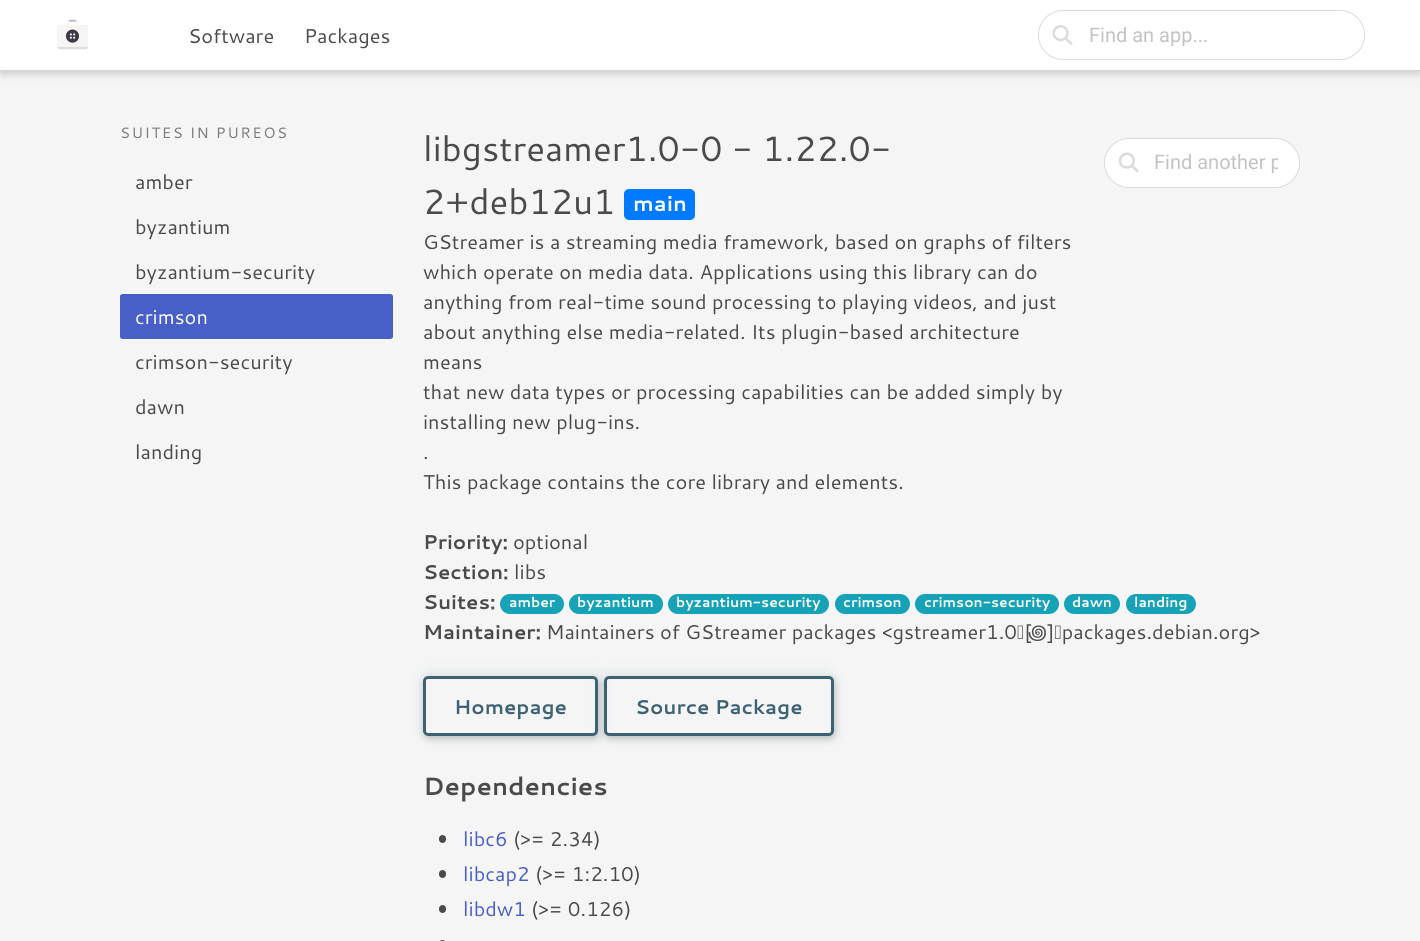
#include <cairo/cairo.h>
#include <math.h>
#include <stddef.h>

static cairo_t *cr;

static void use_color(int r, int g, int b) {
  cairo_set_source_rgb(cr, r / 255.0, g / 255.0, b / 255.0);
}

static void text(double x, double y, const char *s, const char *family, double size, int italic, int bold, int r, int g, int b) {
  cairo_select_font_face(cr, family, italic ? CAIRO_FONT_SLANT_ITALIC : CAIRO_FONT_SLANT_NORMAL,
    bold ? CAIRO_FONT_WEIGHT_BOLD : CAIRO_FONT_WEIGHT_NORMAL);
  cairo_set_font_size(cr, size);
  use_color(r, g, b);
  cairo_move_to(cr, x, y);
  cairo_show_text(cr, s);
}

static void spaced_text(double x, double y, const char *s, double letter, double word) {
  cairo_move_to(cr, x, y);
  while (*s) {
    char ch[5] = {0};
    int n = 0;
    do ch[n++] = *s++; while ((*s & 0xC0) == 0x80);
    cairo_show_text(cr, ch);
    cairo_rel_move_to(cr, letter + word * (*ch == ' '), 0);
  }
}

static void box(double x, double y, double w, double h, int r, int g, int b) {
  use_color(r, g, b);
  cairo_rectangle(cr, x, y, w, h);
  cairo_fill(cr);
}

static void round_rect(double x, double y, double w, double h, double r) {
  cairo_new_sub_path(cr);
  cairo_arc(cr, x + w - r, y + h - r, r, 0, M_PI / 2);
  cairo_arc(cr, x + r, y + h - r, r, M_PI / 2, M_PI);
  cairo_arc(cr, x + r, y + r, r, M_PI, 1.5 * M_PI);
  cairo_arc(cr, x + w - r, y + r, r, 1.5 * M_PI, 2 * M_PI);
  cairo_close_path(cr);
}

static void shadow(double x, double y, double w, double h, double r, double blur, double alpha) {
  cairo_push_group_with_content(cr, CAIRO_CONTENT_ALPHA);
  cairo_set_operator(cr, CAIRO_OPERATOR_SOURCE);
  for (int i = 15; i >= -15 && fmin(w, h) + blur * i / 3 > 0; i -= 2) {
    double e = blur * i / 6;
    cairo_set_source_rgba(cr, 0, 0, 0, alpha * erfc((i - 1) / 8.5) / 2);
    round_rect(x - e, y - e, w + 2 * e, h + 2 * e, fmax(0, fmin(r + e + blur * .6, fmin(w, h) / 2 + e)));
    cairo_fill(cr);
  }
  cairo_pattern_t *soft = cairo_pop_group(cr);
  cairo_mask(cr, soft);
  cairo_pattern_destroy(soft);
}

static void picture(const char *path, double x, double y, double w, double h) {
  cairo_surface_t *image = cairo_image_surface_create_from_png(path);
  cairo_save(cr);
  cairo_set_source_surface(cr, image, x, y);
  cairo_rectangle(cr, x, y, w, h);
  cairo_fill(cr);
  cairo_restore(cr);
  cairo_surface_destroy(image);
}

static void draw(void) {
  use_color(245, 245, 245);
  cairo_paint(cr);
  use_color(0, 0, 0);
  shadow(0, -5, 1420, 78, 0, 6, 0.08);
  shadow(0, -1, 1420, 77, 0, 3, 0.06);
  shadow(1, -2, 1418, 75, 0, 2.5, 0.06);
  box(0, 0, 1420, 70, 255, 255, 255);
  box(0, 70, 1420, 1, 213, 213, 213);
  picture("img_01.png", 57, 19, 31, 31);
  round_rect(1038.5, 10.5, 326, 49, 24.5);
  use_color(219, 219, 219);
  cairo_set_line_width(cr, 1);
  cairo_stroke(cr);
  picture("img_02.png", 1052, 25, 21, 20);
  use_color(72, 95, 199);
  round_rect(120, 294, 273, 45, 2.5);
  cairo_fill(cr);
  use_color(0, 123, 255);
  round_rect(624, 189, 71, 31, 5);
  cairo_fill(cr);
  use_color(255, 255, 255);
  round_rect(1104.5, 138.5, 195, 49, 24.5);
  cairo_fill_preserve(cr);
  use_color(219, 219, 219);
  cairo_stroke(cr);
  picture("img_03.png", 1118, 152, 21, 21);
  use_color(23, 162, 184);
  round_rect(500, 594, 64, 20, 10);
  cairo_fill(cr);
  round_rect(569, 594, 94, 20, 10);
  cairo_fill(cr);
  round_rect(668, 594, 161, 20, 10);
  cairo_fill(cr);
  round_rect(835, 594, 75, 20, 10);
  cairo_fill(cr);
  round_rect(915, 594, 144, 20, 10);
  cairo_fill(cr);
  round_rect(1064, 594, 56, 20, 10);
  cairo_fill(cr);
  round_rect(1126, 594, 70, 20, 10);
  cairo_fill(cr);
  cairo_save(cr);
  cairo_set_fill_rule(cr, CAIRO_FILL_RULE_EVEN_ODD);
  cairo_new_path(cr);
  cairo_move_to(cr, 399, 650);
  cairo_line_to(cr, 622, 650);
  cairo_line_to(cr, 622, 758);
  cairo_line_to(cr, 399, 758);
  cairo_close_path(cr);
  cairo_move_to(cr, 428, 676);
  cairo_line_to(cr, 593, 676);
  cairo_curve_to(cr, 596, 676, 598, 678, 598, 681);
  cairo_line_to(cr, 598, 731);
  cairo_curve_to(cr, 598, 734, 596, 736, 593, 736);
  cairo_line_to(cr, 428, 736);
  cairo_curve_to(cr, 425, 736, 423, 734, 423, 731);
  cairo_line_to(cr, 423, 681);
  cairo_curve_to(cr, 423, 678, 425, 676, 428, 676);
  cairo_close_path(cr);
  cairo_clip(cr);
  use_color(61, 98, 116);
  shadow(423, 674, 175, 60, 5, 7.5, 0.1);
  cairo_restore(cr);
  cairo_save(cr);
  cairo_set_fill_rule(cr, CAIRO_FILL_RULE_EVEN_ODD);
  cairo_new_path(cr);
  cairo_move_to(cr, 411, 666);
  cairo_line_to(cr, 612, 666);
  cairo_line_to(cr, 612, 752);
  cairo_line_to(cr, 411, 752);
  cairo_close_path(cr);
  cairo_move_to(cr, 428, 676);
  cairo_line_to(cr, 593, 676);
  cairo_curve_to(cr, 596, 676, 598, 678, 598, 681);
  cairo_line_to(cr, 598, 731);
  cairo_curve_to(cr, 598, 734, 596, 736, 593, 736);
  cairo_line_to(cr, 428, 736);
  cairo_curve_to(cr, 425, 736, 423, 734, 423, 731);
  cairo_line_to(cr, 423, 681);
  cairo_curve_to(cr, 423, 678, 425, 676, 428, 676);
  cairo_close_path(cr);
  cairo_clip(cr);
  use_color(0, 0, 0);
  shadow(424, 679, 175, 60, 5, 4, 0.2);
  cairo_restore(cr);
  round_rect(424.5, 677.5, 172, 57, 3.5);
  use_color(61, 98, 116);
  cairo_set_line_width(cr, 3);
  cairo_stroke(cr);
  cairo_save(cr);
  cairo_set_fill_rule(cr, CAIRO_FILL_RULE_EVEN_ODD);
  cairo_new_path(cr);
  cairo_move_to(cr, 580, 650);
  cairo_line_to(cr, 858, 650);
  cairo_line_to(cr, 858, 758);
  cairo_line_to(cr, 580, 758);
  cairo_close_path(cr);
  cairo_move_to(cr, 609, 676);
  cairo_line_to(cr, 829, 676);
  cairo_curve_to(cr, 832, 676, 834, 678, 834, 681);
  cairo_line_to(cr, 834, 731);
  cairo_curve_to(cr, 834, 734, 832, 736, 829, 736);
  cairo_line_to(cr, 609, 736);
  cairo_curve_to(cr, 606, 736, 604, 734, 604, 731);
  cairo_line_to(cr, 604, 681);
  cairo_curve_to(cr, 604, 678, 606, 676, 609, 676);
  cairo_close_path(cr);
  cairo_clip(cr);
  use_color(61, 98, 116);
  shadow(604, 674, 230, 60, 5, 7.5, 0.1);
  cairo_restore(cr);
  cairo_save(cr);
  cairo_set_fill_rule(cr, CAIRO_FILL_RULE_EVEN_ODD);
  cairo_new_path(cr);
  cairo_move_to(cr, 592, 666);
  cairo_line_to(cr, 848, 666);
  cairo_line_to(cr, 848, 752);
  cairo_line_to(cr, 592, 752);
  cairo_close_path(cr);
  cairo_move_to(cr, 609, 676);
  cairo_line_to(cr, 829, 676);
  cairo_curve_to(cr, 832, 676, 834, 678, 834, 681);
  cairo_line_to(cr, 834, 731);
  cairo_curve_to(cr, 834, 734, 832, 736, 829, 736);
  cairo_line_to(cr, 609, 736);
  cairo_curve_to(cr, 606, 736, 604, 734, 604, 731);
  cairo_line_to(cr, 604, 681);
  cairo_curve_to(cr, 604, 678, 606, 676, 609, 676);
  cairo_close_path(cr);
  cairo_clip(cr);
  use_color(0, 0, 0);
  shadow(605, 679, 230, 60, 5, 4, 0.2);
  cairo_restore(cr);
  round_rect(605.5, 677.5, 227, 57, 3.5);
  cairo_stroke(cr);
  use_color(74, 74, 74);
  round_rect(439, 835, 7, 8, 3.5);
  cairo_fill(cr);
  round_rect(439, 870, 7, 8, 3.5);
  cairo_fill(cr);
  round_rect(439, 905, 7, 8, 3.5);
  cairo_fill(cr);
  round_rect(439, 940, 7, 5, 3.5);
  cairo_fill(cr);
  text(188, 43, "Software", "Cantarell", 20, 0, 0, 74, 74, 74);
  text(304, 43, "Packages", "Cantarell", 20, 0, 0, 74, 74, 74);
  text(1089, 42, "Find an app...", "Roboto", 20, 0, 0, 195, 195, 195);
  cairo_select_font_face(cr, "Cantarell", CAIRO_FONT_SLANT_NORMAL, CAIRO_FONT_WEIGHT_NORMAL);
  cairo_set_font_size(cr, 15);
  use_color(122, 122, 122);
  spaced_text(120, 138, "SUITES IN PUREOS", 1.5, 0);
  text(135, 189, "amber", "Cantarell", 20, 0, 0, 74, 74, 74);
  text(135, 234, "byzantium", "Cantarell", 20, 0, 0, 74, 74, 74);
  text(135, 279, "byzantium-security", "Cantarell", 20, 0, 0, 74, 74, 74);
  text(135, 324, "crimson", "Cantarell", 20, 0, 0, 255, 255, 255);
  text(135, 369, "crimson-security", "Cantarell", 20, 0, 0, 74, 74, 74);
  text(135, 414, "dawn", "Cantarell", 20, 0, 0, 74, 74, 74);
  text(135, 459, "landing", "Cantarell", 20, 0, 0, 74, 74, 74);
  text(423, 161, "libgstreamer1.0-0 - 1.22.0-", "Cantarell", 35, 0, 0, 74, 74, 74);
  text(423, 214, "2+deb12u1", "Cantarell", 35, 0, 0, 74, 74, 74);
  text(633, 211, "main", "Cantarell", 21.5, 0, 1, 255, 255, 255);
  text(423, 249, "GStreamer is a streaming media framework, based on graphs of filters", "Cantarell", 20, 0, 0, 74, 74, 74);
  text(423, 279, "which operate on media data. Applications using this library can do", "Cantarell", 20, 0, 0, 74, 74, 74);
  text(423, 309, "anything from real-time sound processing to playing videos, and just", "Cantarell", 20, 0, 0, 74, 74, 74);
  text(423, 339, "about anything else media-related. Its plugin-based architecture", "Cantarell", 20, 0, 0, 74, 74, 74);
  text(423, 369, "means", "Cantarell", 20, 0, 0, 74, 74, 74);
  text(423, 399, "that new data types or processing capabilities can be added simply by", "Cantarell", 20, 0, 0, 74, 74, 74);
  text(423, 429, "installing new plug-ins.", "Cantarell", 20, 0, 0, 74, 74, 74);
  text(423, 459, ".", "Cantarell", 20, 0, 0, 74, 74, 74);
  text(423, 489, "This package contains the core library and elements.", "Cantarell", 20, 0, 0, 74, 74, 74);
  cairo_save(cr);
  cairo_rectangle(cr, 1155, 151, 123, 24);
  cairo_clip(cr);
  text(1154, 169, "Find another p", "Roboto", 20, 0, 0, 195, 195, 195);
  cairo_restore(cr);
  text(423, 549, "Priority:", "Cantarell", 20, 0, 1, 74, 74, 74);
  text(513, 549, "optional", "Cantarell", 20, 0, 0, 74, 74, 74);
  text(423, 579, "Section:", "Cantarell", 20, 0, 1, 74, 74, 74);
  text(514, 579, "libs", "Cantarell", 20, 0, 0, 74, 74, 74);
  text(423, 609, "Suites:", "Cantarell", 20, 0, 1, 74, 74, 74);
  text(509, 607, "amber", "Cantarell", 14, 0, 1, 255, 255, 255);
  text(577, 607, "byzantium", "Cantarell", 14, 0, 1, 255, 255, 255);
  text(676, 607, "byzantium-security", "Cantarell", 14, 0, 1, 255, 255, 255);
  text(843, 607, "crimson", "Cantarell", 14, 0, 1, 255, 255, 255);
  text(924, 607, "crimson-security", "Cantarell", 14, 0, 1, 255, 255, 255);
  text(1072, 607, "dawn", "Cantarell", 14, 0, 1, 255, 255, 255);
  text(1134, 607, "landing", "Cantarell", 14, 0, 1, 255, 255, 255);
  text(423, 639, "Maintainer:", "Cantarell", 20, 0, 1, 74, 74, 74);
  text(546, 639, "Maintainers of GStreamer packages <gstreamer1.0 [", "Cantarell", 20, 0, 0, 74, 74, 74);
  text(1028, 639, "꩜", "Noto Sans Cham", 20, 0, 0, 74, 74, 74);
  text(1047, 639, "] packages.debian.org>", "Cantarell", 20, 0, 0, 74, 74, 74);
  text(454, 714, "Homepage", "Cantarell", 20, 0, 1, 61, 98, 116);
  text(635, 714, "Source Package", "Cantarell", 20, 0, 1, 61, 98, 116);
  text(423, 795, "Dependencies", "Cantarell", 25, 0, 1, 74, 74, 74);
  text(463, 846, "libc6", "Cantarell", 20, 0, 0, 72, 95, 199);
  text(513, 846, "(>= 2.34)", "Cantarell", 20, 0, 0, 74, 74, 74);
  text(463, 881, "libcap2", "Cantarell", 20, 0, 0, 72, 95, 199);
  text(535, 881, "(>= 1:2.10)", "Cantarell", 20, 0, 0, 74, 74, 74);
  text(463, 916, "libdw1", "Cantarell", 20, 0, 0, 72, 95, 199);
  text(531, 916, "(>= 0.126)", "Cantarell", 20, 0, 0, 74, 74, 74);
}

int main(void) {
  cairo_surface_t *surface = cairo_image_surface_create(CAIRO_FORMAT_RGB24, 1420, 941);
  cr = cairo_create(surface);
  cairo_font_options_t *options = cairo_font_options_create();
  cairo_font_options_set_hint_metrics(options, CAIRO_HINT_METRICS_OFF);
  cairo_font_options_set_hint_style(options, CAIRO_HINT_STYLE_NONE);
  cairo_set_font_options(cr, options);
  cairo_set_miter_limit(cr, 4);
  draw();
  cairo_surface_write_to_png(surface, "out.png");
  cairo_font_options_destroy(options);
  cairo_destroy(cr);
  cairo_surface_destroy(surface);
  return 0;
}
